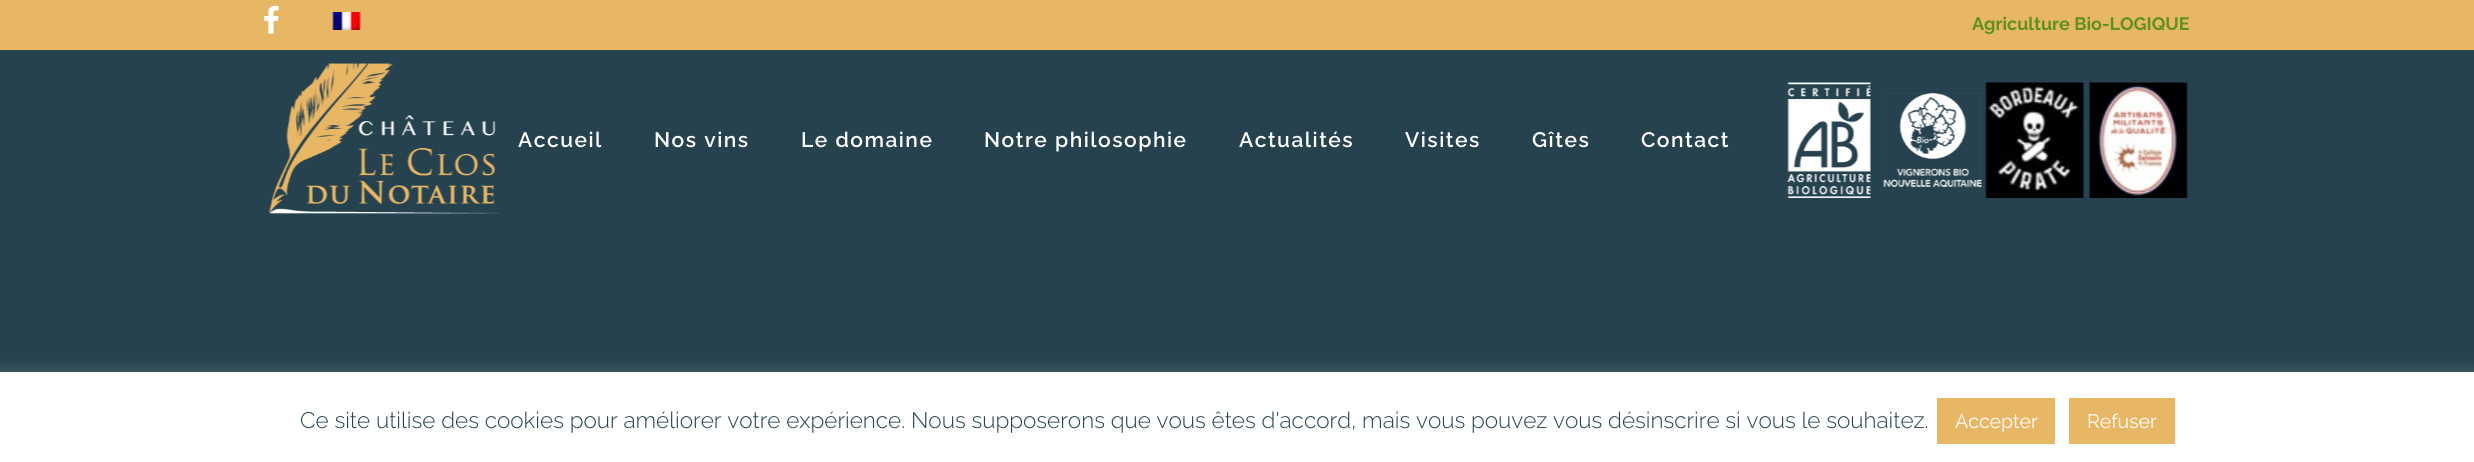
#include <cairo/cairo.h>
#include <math.h>
#include <stddef.h>

static cairo_t *cr;

static void use_color(int r, int g, int b) {
  cairo_set_source_rgb(cr, r / 255.0, g / 255.0, b / 255.0);
}

static void text(double x, double y, const char *s, const char *family, double size, int italic, int bold, int r, int g, int b) {
  cairo_select_font_face(cr, family, italic ? CAIRO_FONT_SLANT_ITALIC : CAIRO_FONT_SLANT_NORMAL,
    bold ? CAIRO_FONT_WEIGHT_BOLD : CAIRO_FONT_WEIGHT_NORMAL);
  cairo_set_font_size(cr, size);
  use_color(r, g, b);
  cairo_move_to(cr, x, y);
  cairo_show_text(cr, s);
}

static void spaced_text(double x, double y, const char *s, double letter, double word) {
  cairo_move_to(cr, x, y);
  while (*s) {
    char ch[5] = {0};
    int n = 0;
    do ch[n++] = *s++; while ((*s & 0xC0) == 0x80);
    cairo_show_text(cr, ch);
    cairo_rel_move_to(cr, letter + word * (*ch == ' '), 0);
  }
}

static void box(double x, double y, double w, double h, int r, int g, int b) {
  use_color(r, g, b);
  cairo_rectangle(cr, x, y, w, h);
  cairo_fill(cr);
}

static void round_rect(double x, double y, double w, double h, double r) {
  cairo_new_sub_path(cr);
  cairo_arc(cr, x + w - r, y + h - r, r, 0, M_PI / 2);
  cairo_arc(cr, x + r, y + h - r, r, M_PI / 2, M_PI);
  cairo_arc(cr, x + r, y + r, r, M_PI, 1.5 * M_PI);
  cairo_arc(cr, x + w - r, y + r, r, 1.5 * M_PI, 2 * M_PI);
  cairo_close_path(cr);
}

static void shadow(double x, double y, double w, double h, double r, double blur, double alpha) {
  cairo_push_group_with_content(cr, CAIRO_CONTENT_ALPHA);
  cairo_set_operator(cr, CAIRO_OPERATOR_SOURCE);
  for (int i = 15; i >= -15 && fmin(w, h) + blur * i / 3 > 0; i -= 2) {
    double e = blur * i / 6;
    cairo_set_source_rgba(cr, 0, 0, 0, alpha * erfc((i - 1) / 8.5) / 2);
    round_rect(x - e, y - e, w + 2 * e, h + 2 * e, fmax(0, fmin(r + e + blur * .6, fmin(w, h) / 2 + e)));
    cairo_fill(cr);
  }
  cairo_pattern_t *soft = cairo_pop_group(cr);
  cairo_mask(cr, soft);
  cairo_pattern_destroy(soft);
}

static void picture(const char *path, double x, double y, double w, double h) {
  cairo_surface_t *image = cairo_image_surface_create_from_png(path);
  cairo_save(cr);
  cairo_set_source_surface(cr, image, x, y);
  cairo_rectangle(cr, x, y, w, h);
  cairo_fill(cr);
  cairo_restore(cr);
  cairo_surface_destroy(image);
}

static void draw(void) {
  use_color(38, 66, 79);
  cairo_paint(cr);
  box(0, 0, 2474, 50, 232, 183, 102);
  picture("img_01.png", 264, 5, 15, 29);
  picture("img_02.png", 332, 12, 29, 18);
  picture("img_03.png", 268, 63, 231, 151);
  picture("img_04.png", 1787, 82, 84, 116);
  picture("img_05.png", 1883, 93, 99, 94);
  picture("img_06.png", 1985, 82, 99, 116);
  picture("img_07.png", 2089, 82, 99, 116);
  use_color(172, 171, 171);
  shadow(0, 371, 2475, 90, 0, 7.5, 0.3);
  box(0, 372, 2474, 90, 255, 255, 255);
  box(1937, 398, 118, 46, 232, 183, 102);
  box(2069, 398, 106, 46, 232, 183, 102);
  text(1972, 30, "Agriculture Bio-LOGIQUE", "Raleway", 18, 0, 1, 96, 145, 27);
  cairo_select_font_face(cr, "Raleway SemiBold", CAIRO_FONT_SLANT_NORMAL, CAIRO_FONT_WEIGHT_NORMAL);
  cairo_set_font_size(cr, 21);
  use_color(255, 255, 255);
  spaced_text(518, 147, "Accueil", 1.5, 0);
  spaced_text(654, 147, "Nos vins", 1.5, 0);
  spaced_text(801, 147, "Le domaine", 1.5, 0);
  spaced_text(984, 147, "Notre philosophie", 1.5, 0);
  spaced_text(1239, 147, "Actualités", 1.5, 0);
  spaced_text(1405, 147, "Visites", 1.5, 0);
  spaced_text(1532, 147, "Gîtes", 1.5, 0);
  spaced_text(1641, 147, "Contact", 1.5, 0);
  text(300, 428, "Ce site utilise des cookies pour améliorer votre expérience. Nous supposerons que vous êtes d'accord, mais vous pouvez vous désinscrire si vous le souhaitez.", "Raleway Light", 22.5, 0, 0, 38, 66, 79);
  text(1955, 428, "Accepter", "Raleway", 19.5, 0, 0, 255, 255, 255);
  text(2087, 428, "Refuser", "Raleway", 19.5, 0, 0, 255, 255, 255);
}

int main(void) {
  cairo_surface_t *surface = cairo_image_surface_create(CAIRO_FORMAT_RGB24, 2474, 462);
  cr = cairo_create(surface);
  cairo_font_options_t *options = cairo_font_options_create();
  cairo_font_options_set_hint_metrics(options, CAIRO_HINT_METRICS_OFF);
  cairo_font_options_set_hint_style(options, CAIRO_HINT_STYLE_NONE);
  cairo_set_font_options(cr, options);
  cairo_set_miter_limit(cr, 4);
  draw();
  cairo_surface_write_to_png(surface, "out.png");
  cairo_font_options_destroy(options);
  cairo_destroy(cr);
  cairo_surface_destroy(surface);
  return 0;
}
